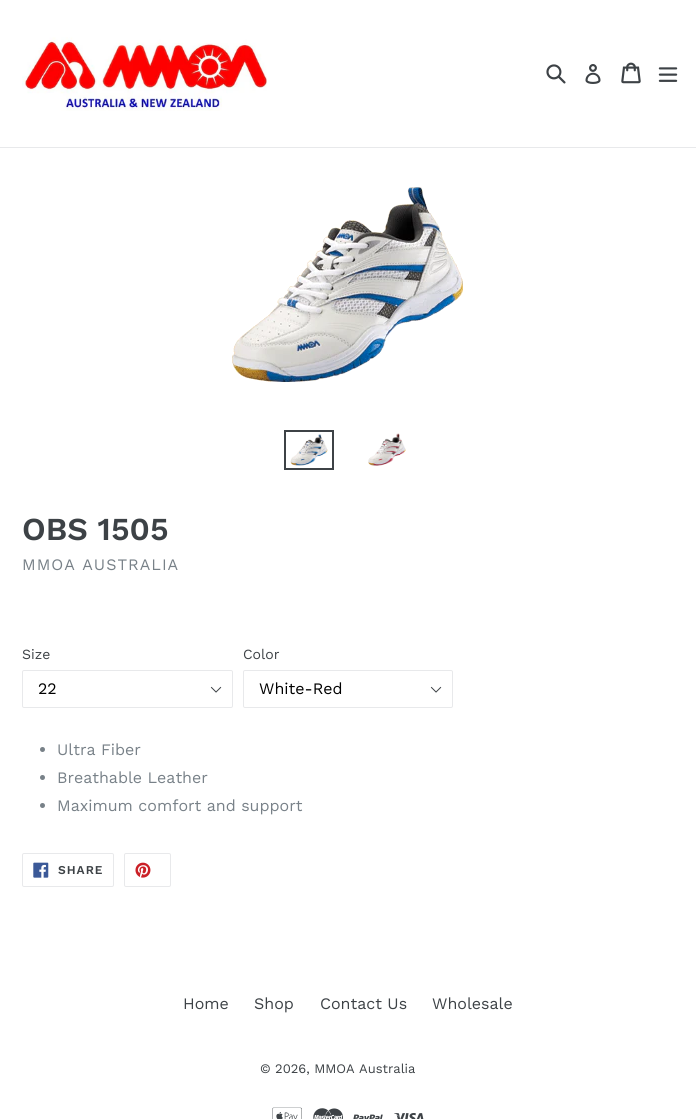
#include <cairo/cairo.h>
#include <math.h>
#include <stddef.h>

static cairo_t *cr;

static void use_color(int r, int g, int b) {
  cairo_set_source_rgb(cr, r / 255.0, g / 255.0, b / 255.0);
}

static void text(double x, double y, const char *s, const char *family, double size, int italic, int bold, int r, int g, int b) {
  cairo_select_font_face(cr, family, italic ? CAIRO_FONT_SLANT_ITALIC : CAIRO_FONT_SLANT_NORMAL,
    bold ? CAIRO_FONT_WEIGHT_BOLD : CAIRO_FONT_WEIGHT_NORMAL);
  cairo_set_font_size(cr, size);
  use_color(r, g, b);
  cairo_move_to(cr, x, y);
  cairo_show_text(cr, s);
}

static void spaced_text(double x, double y, const char *s, double letter, double word) {
  cairo_move_to(cr, x, y);
  while (*s) {
    char ch[5] = {0};
    int n = 0;
    do ch[n++] = *s++; while ((*s & 0xC0) == 0x80);
    cairo_show_text(cr, ch);
    cairo_rel_move_to(cr, letter + word * (*ch == ' '), 0);
  }
}

static void box(double x, double y, double w, double h, int r, int g, int b) {
  use_color(r, g, b);
  cairo_rectangle(cr, x, y, w, h);
  cairo_fill(cr);
}

static void round_rect(double x, double y, double w, double h, double r) {
  cairo_new_sub_path(cr);
  cairo_arc(cr, x + w - r, y + h - r, r, 0, M_PI / 2);
  cairo_arc(cr, x + r, y + h - r, r, M_PI / 2, M_PI);
  cairo_arc(cr, x + r, y + r, r, M_PI, 1.5 * M_PI);
  cairo_arc(cr, x + w - r, y + r, r, 1.5 * M_PI, 2 * M_PI);
  cairo_close_path(cr);
}

static void picture(const char *path, double x, double y, double w, double h) {
  cairo_surface_t *image = cairo_image_surface_create_from_png(path);
  cairo_save(cr);
  cairo_set_source_surface(cr, image, x, y);
  cairo_rectangle(cr, x, y, w, h);
  cairo_fill(cr);
  cairo_restore(cr);
  cairo_surface_destroy(image);
}

static void draw(void) {
  use_color(255, 255, 255);
  cairo_paint(cr);
  box(0, 147, 696, 1, 232, 233, 235);
  picture("img_01.png", 22, 37, 245, 74);
  picture("img_02.png", 546, 64, 20, 20);
  picture("img_03.png", 585, 64, 16, 20);
  picture("img_04.png", 621, 62, 20, 22);
  picture("img_05.png", 658, 67, 20, 15);
  picture("img_06.png", 232, 187, 231, 195);
  cairo_rectangle(cr, 285, 431, 48, 38);
  use_color(61, 66, 70);
  cairo_stroke(cr);
  picture("img_07.png", 290, 434, 38, 32);
  picture("img_08.png", 368, 433, 38, 33);
  picture("img_09.png", 210, 686, 12, 7);
  round_rect(22.5, 670.5, 210, 37, 1.5);
  use_color(232, 233, 235);
  cairo_set_line_width(cr, 1);
  cairo_stroke(cr);
  picture("img_09.png", 430, 686, 12, 7);
  round_rect(243.5, 670.5, 209, 37, 1.5);
  cairo_stroke(cr);
  use_color(120, 129, 136);
  cairo_arc(cr, 42.5, 749.5, 2.5, 0, 2 * M_PI);
  cairo_fill(cr);
  cairo_arc(cr, 42.5, 777.5, 2.5, 0, 2 * M_PI);
  cairo_fill(cr);
  cairo_arc(cr, 42.5, 805.5, 2.5, 0, 2 * M_PI);
  cairo_fill(cr);
  round_rect(22.5, 853.5, 91, 33, 1.5);
  use_color(232, 233, 235);
  cairo_stroke(cr);
  picture("img_10.png", 33, 862, 16, 16);
  round_rect(124.5, 853.5, 46, 33, 1.5);
  cairo_stroke(cr);
  picture("img_11.png", 135, 862, 16, 16);
  picture("img_12.png", 272, 1107, 30, 12);
  picture("img_13.png", 313, 1108, 30, 11);
  picture("img_14.png", 353, 1114, 30, 5);
  picture("img_15.png", 394, 1113, 30, 6);
  text(22, 540, "OBS 1505", "Work Sans SemiBold", 32, 0, 0, 61, 66, 70);
  cairo_select_font_face(cr, "Work Sans", CAIRO_FONT_SLANT_NORMAL, CAIRO_FONT_WEIGHT_NORMAL);
  cairo_set_font_size(cr, 16);
  use_color(120, 129, 136);
  spaced_text(22, 570, "MMOA AUSTRALIA", 1, 0);
  text(22, 659, "Size", "Work Sans", 14, 0, 0, 61, 66, 70);
  text(38, 694, "22", "Work Sans", 16, 0, 0, 0, 0, 0);
  text(243, 659, "Color", "Work Sans", 14, 0, 0, 61, 66, 70);
  text(259, 694, "White-Red", "Work Sans", 16, 0, 0, 0, 0, 0);
  text(57, 755, "Ultra Fiber", "Work Sans", 16, 0, 0, 120, 129, 136);
  text(57, 783, "Breathable Leather", "Work Sans", 16, 0, 0, 120, 129, 136);
  text(57, 811, "Maximum comfort and support", "Work Sans", 16, 0, 0, 120, 129, 136);
  cairo_select_font_face(cr, "Work Sans SemiBold", CAIRO_FONT_SLANT_NORMAL, CAIRO_FONT_WEIGHT_NORMAL);
  cairo_set_font_size(cr, 12);
  use_color(61, 66, 70);
  spaced_text(58, 874, "SHARE", 1, 0);
  text(183, 1009, "Home", "Work Sans", 16, 0, 0, 61, 66, 70);
  text(254, 1009, "Shop", "Work Sans", 16, 0, 0, 61, 66, 70);
  text(320, 1009, "Contact Us", "Work Sans", 16, 0, 0, 61, 66, 70);
  text(432, 1009, "Wholesale", "Work Sans", 16, 0, 0, 61, 66, 70);
  text(260, 1073, "© 2026, MMOA Australia", "Work Sans", 13, 0, 0, 61, 66, 70);
}

int main(void) {
  cairo_surface_t *surface = cairo_image_surface_create(CAIRO_FORMAT_RGB24, 696, 1119);
  cr = cairo_create(surface);
  cairo_font_options_t *options = cairo_font_options_create();
  cairo_font_options_set_hint_metrics(options, CAIRO_HINT_METRICS_OFF);
  cairo_font_options_set_hint_style(options, CAIRO_HINT_STYLE_NONE);
  cairo_set_font_options(cr, options);
  cairo_set_miter_limit(cr, 4);
  draw();
  cairo_surface_write_to_png(surface, "out.png");
  cairo_font_options_destroy(options);
  cairo_destroy(cr);
  cairo_surface_destroy(surface);
  return 0;
}
